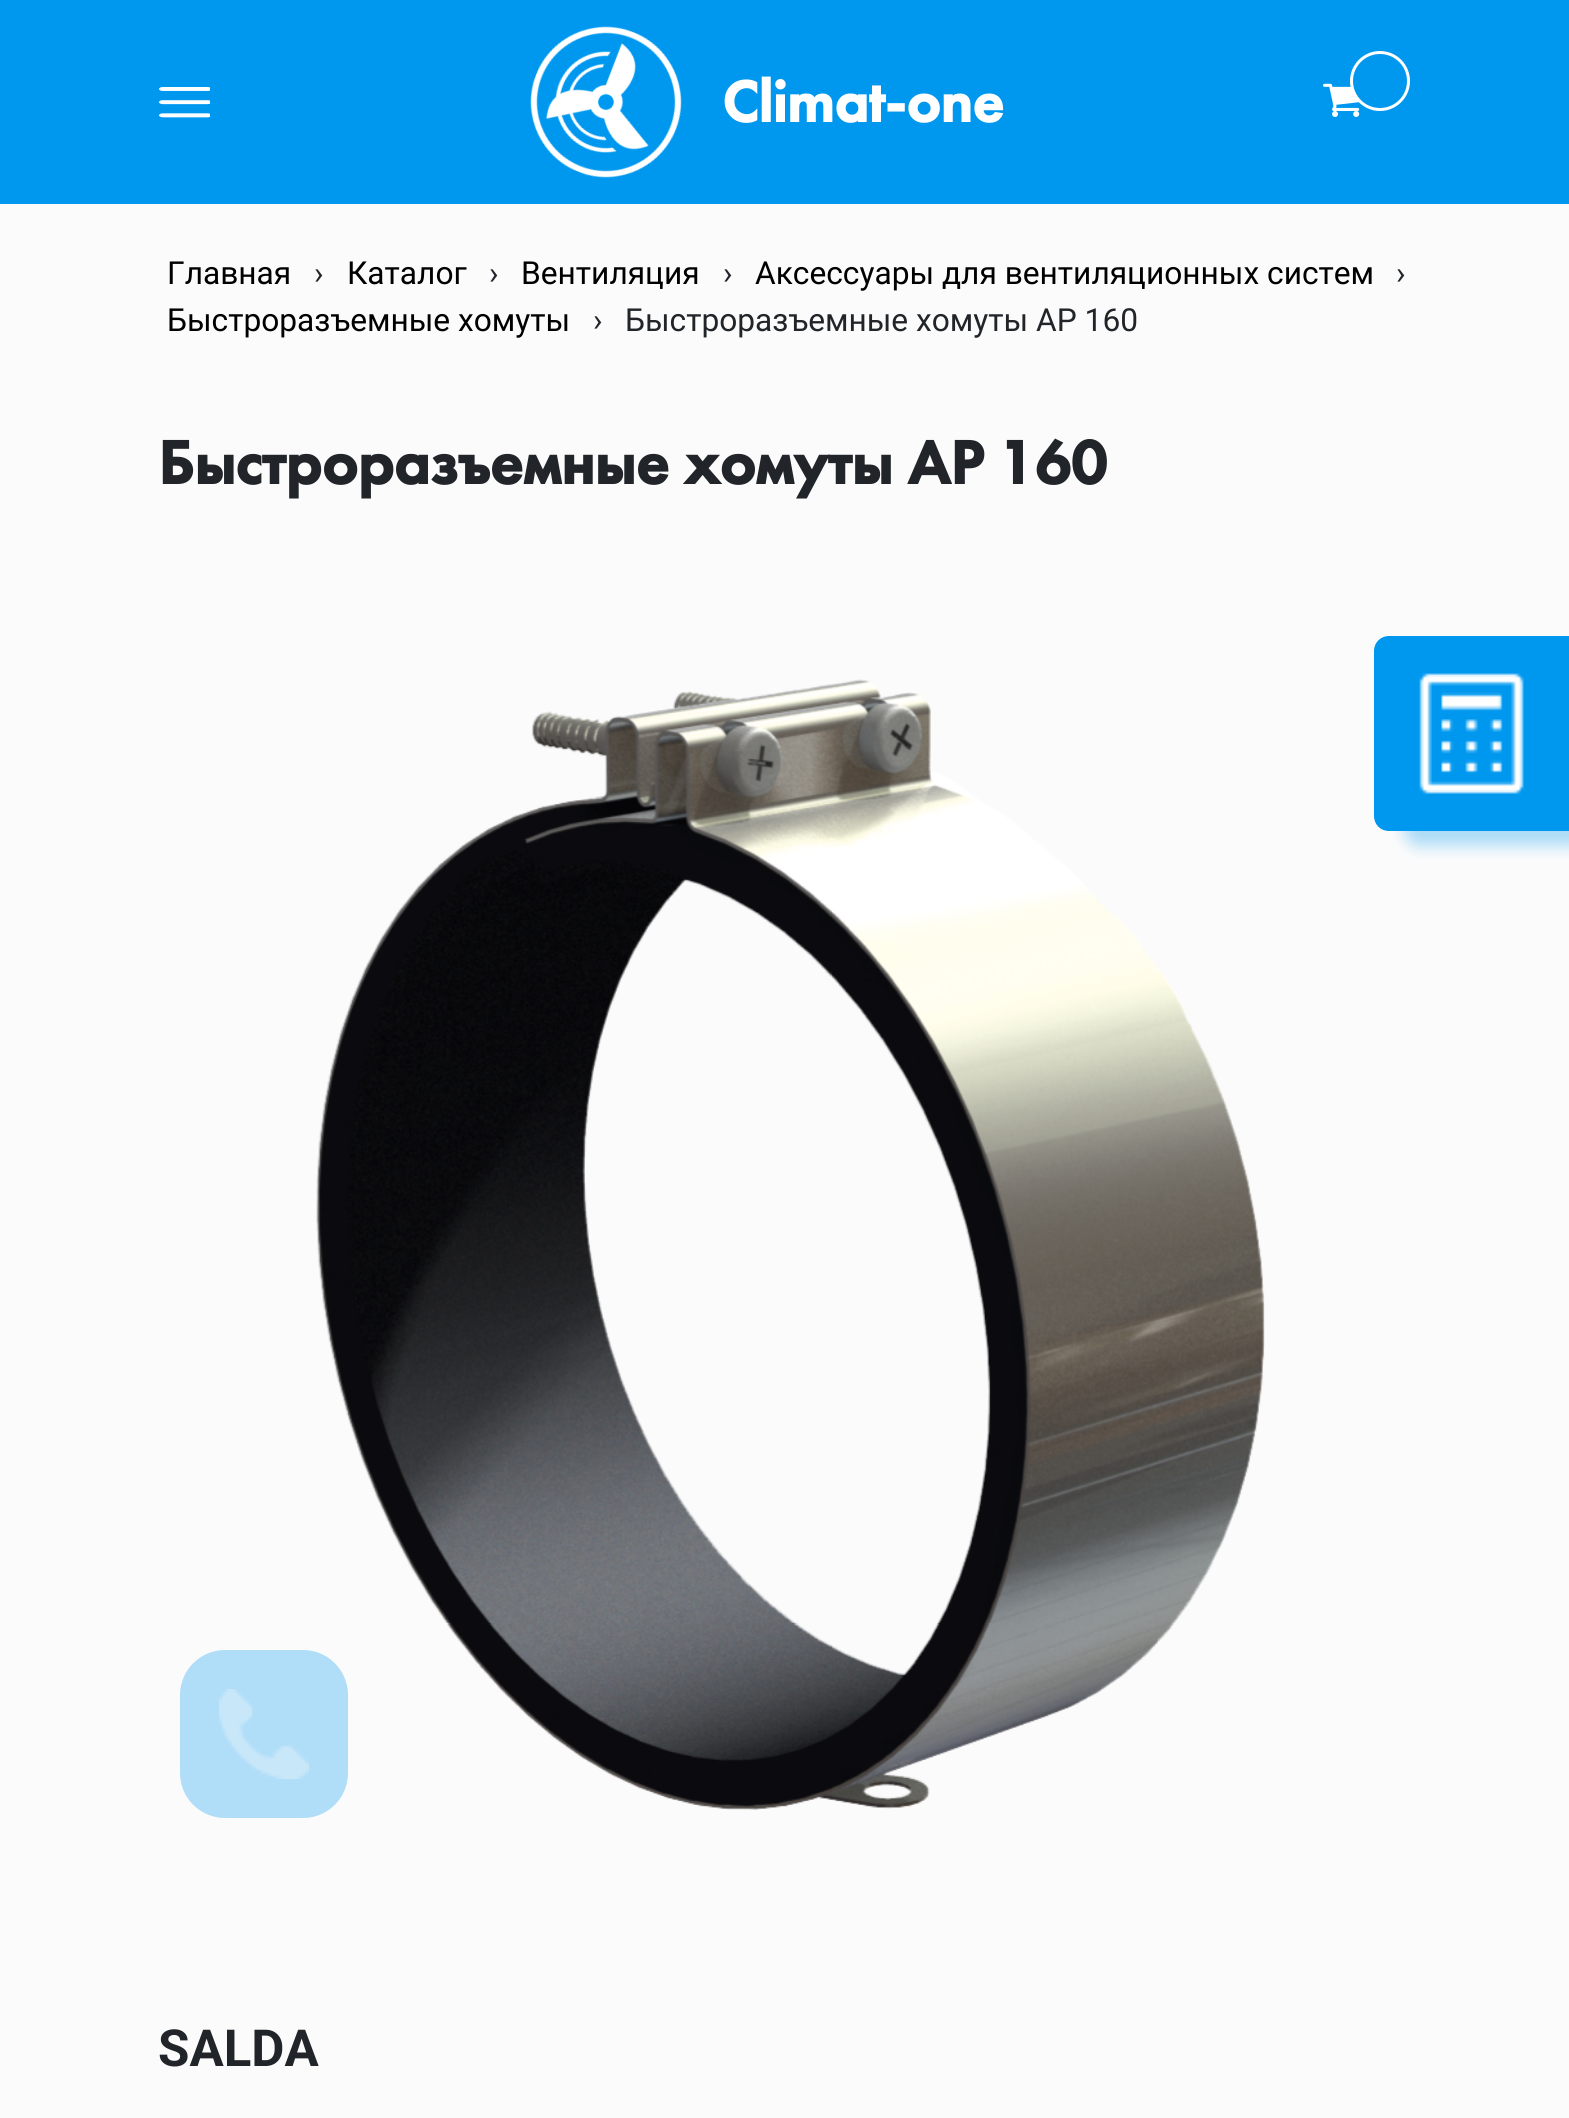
#include <cairo/cairo.h>
#include <math.h>
#include <stddef.h>

static cairo_t *cr;

static void use_color(int r, int g, int b) {
  cairo_set_source_rgb(cr, r / 255.0, g / 255.0, b / 255.0);
}

static void text(double x, double y, const char *s, const char *family, double size, int italic, int bold, int r, int g, int b) {
  cairo_select_font_face(cr, family, italic ? CAIRO_FONT_SLANT_ITALIC : CAIRO_FONT_SLANT_NORMAL,
    bold ? CAIRO_FONT_WEIGHT_BOLD : CAIRO_FONT_WEIGHT_NORMAL);
  cairo_set_font_size(cr, size);
  use_color(r, g, b);
  cairo_move_to(cr, x, y);
  cairo_show_text(cr, s);
}

static void box(double x, double y, double w, double h, int r, int g, int b) {
  use_color(r, g, b);
  cairo_rectangle(cr, x, y, w, h);
  cairo_fill(cr);
}

static void round_rect(double x, double y, double w, double h, double r) {
  cairo_new_sub_path(cr);
  cairo_arc(cr, x + w - r, y + h - r, r, 0, M_PI / 2);
  cairo_arc(cr, x + r, y + h - r, r, M_PI / 2, M_PI);
  cairo_arc(cr, x + r, y + r, r, M_PI, 1.5 * M_PI);
  cairo_arc(cr, x + w - r, y + r, r, 1.5 * M_PI, 2 * M_PI);
  cairo_close_path(cr);
}

static void shadow(double x, double y, double w, double h, double r, double blur, double alpha) {
  cairo_push_group_with_content(cr, CAIRO_CONTENT_ALPHA);
  cairo_set_operator(cr, CAIRO_OPERATOR_SOURCE);
  for (int i = 15; i >= -15 && fmin(w, h) + blur * i / 3 > 0; i -= 2) {
    double e = blur * i / 6;
    cairo_set_source_rgba(cr, 0, 0, 0, alpha * erfc((i - 1) / 8.5) / 2);
    round_rect(x - e, y - e, w + 2 * e, h + 2 * e, fmax(0, fmin(r + e + blur * .6, fmin(w, h) / 2 + e)));
    cairo_fill(cr);
  }
  cairo_pattern_t *soft = cairo_pop_group(cr);
  cairo_mask(cr, soft);
  cairo_pattern_destroy(soft);
}

static void picture(const char *path, double x, double y, double w, double h) {
  cairo_surface_t *image = cairo_image_surface_create_from_png(path);
  cairo_save(cr);
  cairo_set_source_surface(cr, image, x, y);
  cairo_rectangle(cr, x, y, w, h);
  cairo_fill(cr);
  cairo_restore(cr);
  cairo_surface_destroy(image);
}

static void draw(void) {
  use_color(251, 251, 251);
  cairo_paint(cr);
  box(0, 0, 1569, 204, 0, 152, 239);
  picture("img_01.png", 159, 87, 51, 31);
  picture("img_02.png", 530, 26, 152, 152);
  picture("img_03.png", 1323, 83, 37, 34);
  cairo_arc(cr, 1380, 81, 28.5, 0, 2 * M_PI);
  cairo_fill_preserve(cr);
  use_color(255, 255, 255);
  cairo_set_line_width(cr, 3);
  cairo_stroke(cr);
  picture("img_04.png", 316, 679, 949, 1131);
  use_color(0, 152, 239);
  shadow(1404, 651, 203, 195, 15, 7.5, 0.32);
  use_color(0, 152, 239);
  cairo_new_path(cr);
  cairo_move_to(cr, 1389, 636);
  cairo_line_to(cr, 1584, 636);
  cairo_line_to(cr, 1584, 831);
  cairo_line_to(cr, 1389, 831);
  cairo_curve_to(cr, 1380.5, 831, 1374, 824.5, 1374, 816);
  cairo_line_to(cr, 1374, 651);
  cairo_curve_to(cr, 1374, 642.5, 1380.5, 636, 1389, 636);
  cairo_close_path(cr);
  cairo_fill(cr);
  picture("img_05.png", 1419, 673, 105, 121);
  use_color(176, 221, 247);
  round_rect(180, 1650, 168, 168, 45);
  cairo_fill(cr);
  picture("img_06.png", 219, 1689, 90, 90);
  text(722, 122, "Climat-one", "Futura PT", 60, 0, 1, 255, 255, 255);
  text(167, 284, "Главная", "Roboto", 31.7, 0, 0, 0, 0, 0);
  text(314, 284, "›", "Roboto", 31.7, 0, 0, 33, 37, 41);
  text(347, 284, "Каталог", "Roboto", 31.7, 0, 0, 0, 0, 0);
  text(489, 284, "›", "Roboto", 31.7, 0, 0, 33, 37, 41);
  text(521, 284, "Вентиляция", "Roboto", 31.7, 0, 0, 0, 0, 0);
  text(723, 284, "›", "Roboto", 31.7, 0, 0, 33, 37, 41);
  text(755, 284, "Аксессуары для вентиляционных систем", "Roboto", 31.7, 0, 0, 0, 0, 0);
  text(1396, 284, "›", "Roboto", 31.7, 0, 0, 33, 37, 41);
  text(167, 331, "Быстроразъемные хомуты", "Roboto", 31.7, 0, 0, 0, 0, 0);
  text(593, 331, "›", "Roboto", 31.7, 0, 0, 33, 37, 41);
  text(625, 331, "Быстроразъемные хомуты AP 160", "Roboto", 31.7, 0, 0, 33, 37, 41);
  text(158, 484, "Быстроразъемные хомуты AP 160", "Futura PT", 63.4, 0, 1, 33, 37, 41);
  text(158, 2066, "SALDA", "Roboto", 51, 0, 1, 33, 37, 41);
}

int main(void) {
  cairo_surface_t *surface = cairo_image_surface_create(CAIRO_FORMAT_RGB24, 1569, 2118);
  cr = cairo_create(surface);
  cairo_font_options_t *options = cairo_font_options_create();
  cairo_font_options_set_hint_metrics(options, CAIRO_HINT_METRICS_OFF);
  cairo_font_options_set_hint_style(options, CAIRO_HINT_STYLE_NONE);
  cairo_set_font_options(cr, options);
  cairo_set_miter_limit(cr, 4);
  draw();
  cairo_surface_write_to_png(surface, "out.png");
  cairo_font_options_destroy(options);
  cairo_destroy(cr);
  cairo_surface_destroy(surface);
  return 0;
}
